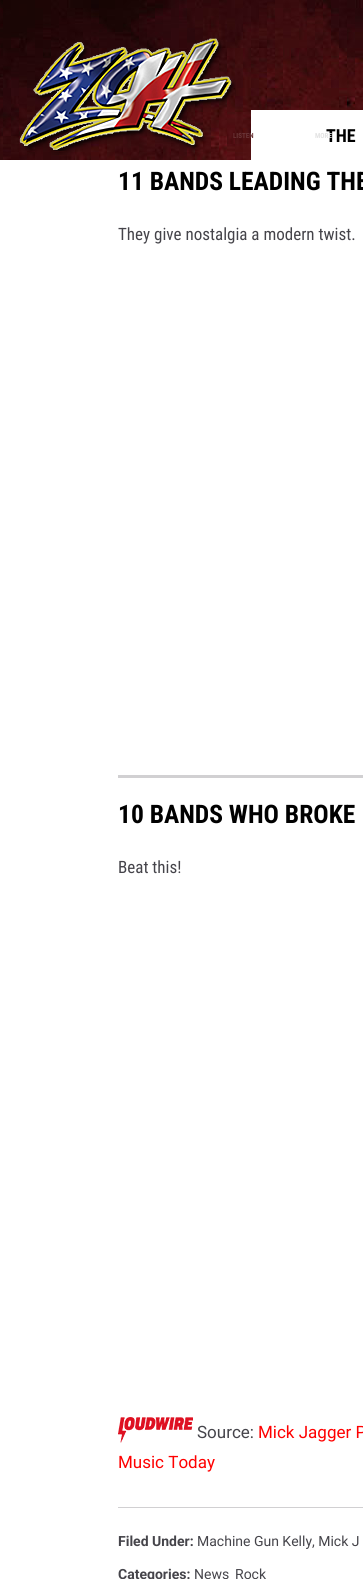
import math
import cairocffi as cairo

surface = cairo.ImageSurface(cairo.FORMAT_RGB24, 363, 1579)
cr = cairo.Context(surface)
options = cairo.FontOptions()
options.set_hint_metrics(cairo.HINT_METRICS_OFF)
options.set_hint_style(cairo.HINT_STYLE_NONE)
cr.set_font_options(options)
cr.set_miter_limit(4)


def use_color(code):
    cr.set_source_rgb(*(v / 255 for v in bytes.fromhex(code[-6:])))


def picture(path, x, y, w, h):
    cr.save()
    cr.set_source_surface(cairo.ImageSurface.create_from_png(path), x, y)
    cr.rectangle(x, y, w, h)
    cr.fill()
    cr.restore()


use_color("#ffffff")
cr.paint()
picture("img1.png", 0, 0, 363, 160)
use_color("#ffffff")
cr.rectangle(251, 110, 112, 50)
cr.fill()
cr.select_font_face("Roboto Condensed", cairo.FONT_SLANT_NORMAL, cairo.FONT_WEIGHT_BOLD)
cr.set_font_size(7)
use_color("#693537")
cr.move_to(233, 138)
cr.show_text("LISTEN")
picture("img2.png", 19, 38, 217, 117)
cr.set_font_size(18)
use_color("#000000")
cr.move_to(326, 142)
cr.show_text("THE")
cr.set_font_size(7)
use_color("#e3e3e3")
cr.move_to(315, 138)
cr.show_text("MORE")
cr.set_font_size(25.5)
use_color("#000000")
cr.move_to(118, 190)
cr.show_text("11 BANDS LEADING THE")
cr.select_font_face("Roboto Condensed")
cr.set_font_size(17)
use_color("#45444a")
cr.move_to(118, 240)
cr.show_text("They give nostalgia a modern twist.")
use_color("#d1d0d2")
cr.rectangle(118, 775, 245, 3)
cr.fill()
cr.select_font_face("Roboto Condensed", cairo.FONT_SLANT_NORMAL, cairo.FONT_WEIGHT_BOLD)
cr.set_font_size(25.5)
use_color("#000000")
cr.move_to(118, 823)
cr.show_text("10 BANDS WHO BROKE")
cr.select_font_face("Roboto Condensed")
cr.set_font_size(17)
use_color("#45444a")
cr.move_to(118, 873)
cr.show_text("Beat this!")
picture("img3.png", 118, 1417, 75, 26)
cr.select_font_face("Roboto")
cr.move_to(197, 1438)
cr.show_text("Source:")
use_color("#ff0000")
cr.move_to(258, 1438)
cr.show_text("Mick Jagger P")
cr.move_to(118, 1468)
cr.show_text("Music Today")
use_color("#d1d0d2")
cr.rectangle(118, 1507, 245, 1)
cr.fill()
cr.select_font_face("Roboto", cairo.FONT_SLANT_NORMAL, cairo.FONT_WEIGHT_BOLD)
cr.set_font_size(14)
use_color("#45444a")
cr.move_to(118, 1546)
cr.show_text("Filed Under:")
cr.select_font_face("Roboto")
cr.move_to(197, 1546)
cr.show_text("Machine Gun Kelly, Mick J")
cr.select_font_face("Roboto", cairo.FONT_SLANT_NORMAL, cairo.FONT_WEIGHT_BOLD)
cr.move_to(118, 1579)
cr.show_text("Categories:")
cr.select_font_face("Roboto")
cr.move_to(194, 1579)
cr.show_text("News")
cr.move_to(235, 1579)
cr.show_text("Rock")
surface.write_to_png("result.png")
